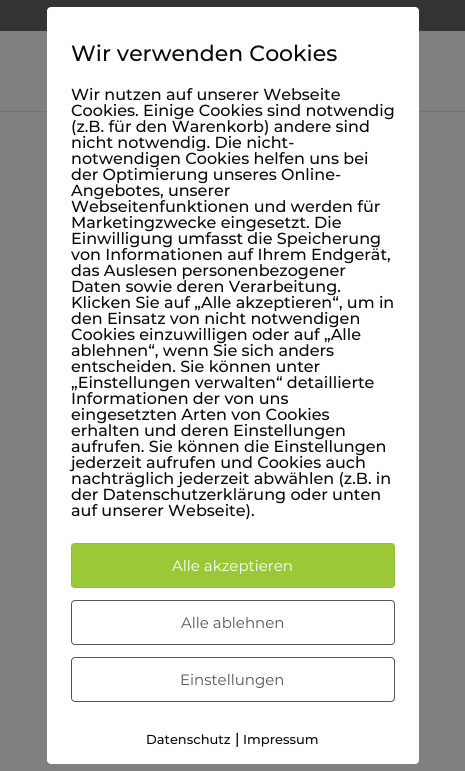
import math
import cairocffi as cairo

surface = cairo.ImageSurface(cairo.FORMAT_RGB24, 465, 771)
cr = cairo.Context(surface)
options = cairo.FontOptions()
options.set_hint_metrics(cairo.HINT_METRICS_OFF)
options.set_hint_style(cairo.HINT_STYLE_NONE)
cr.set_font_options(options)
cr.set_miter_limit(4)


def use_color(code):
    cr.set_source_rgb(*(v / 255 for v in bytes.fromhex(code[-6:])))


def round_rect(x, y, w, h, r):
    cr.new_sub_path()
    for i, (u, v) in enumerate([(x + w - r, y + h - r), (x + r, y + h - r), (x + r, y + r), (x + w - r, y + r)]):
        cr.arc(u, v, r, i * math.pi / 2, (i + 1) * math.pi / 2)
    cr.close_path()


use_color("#808080")
cr.paint()
use_color("#333333")
cr.rectangle(0, 0, 465, 31)
cr.fill()
use_color("#737373")
cr.rectangle(0, 111, 465, 1)
cr.fill()
use_color("#ffffff")
round_rect(47, 7, 372, 757, 4)
cr.fill()
cr.select_font_face("Montserrat Medium")
cr.set_font_size(22)
use_color("#0a0a0a")
cr.move_to(71, 61)
cr.show_text("Wir verwenden Cookies")
cr.set_font_size(16)
cr.move_to(71, 100)
cr.show_text("Wir nutzen auf unserer Webseite")
cr.move_to(71, 116)
cr.show_text("Cookies. Einige Cookies sind notwendig")
cr.move_to(71, 132)
cr.show_text("(z.B. für den Warenkorb) andere sind")
cr.move_to(71, 148)
cr.show_text("nicht notwendig. Die nicht-")
cr.move_to(71, 164)
cr.show_text("notwendigen Cookies helfen uns bei")
cr.move_to(71, 180)
cr.show_text("der Optimierung unseres Online-")
cr.move_to(71, 196)
cr.show_text("Angebotes, unserer")
cr.move_to(71, 212)
cr.show_text("Webseitenfunktionen und werden für")
cr.move_to(71, 228)
cr.show_text("Marketingzwecke eingesetzt. Die")
cr.move_to(71, 244)
cr.show_text("Einwilligung umfasst die Speicherung")
cr.move_to(71, 260)
cr.show_text("von Informationen auf Ihrem Endgerät,")
cr.move_to(71, 276)
cr.show_text("das Auslesen personenbezogener")
cr.move_to(71, 292)
cr.show_text("Daten sowie deren Verarbeitung.")
cr.move_to(71, 308)
cr.show_text("Klicken Sie auf „Alle akzeptieren“, um in")
cr.move_to(71, 324)
cr.show_text("den Einsatz von nicht notwendigen")
cr.move_to(71, 340)
cr.show_text("Cookies einzuwilligen oder auf „Alle")
cr.move_to(71, 356)
cr.show_text("ablehnen“, wenn Sie sich anders")
cr.move_to(71, 372)
cr.show_text("entscheiden. Sie können unter")
cr.move_to(71, 388)
cr.show_text("„Einstellungen verwalten“ detaillierte")
cr.move_to(71, 404)
cr.show_text("Informationen der von uns")
cr.move_to(71, 420)
cr.show_text("eingesetzten Arten von Cookies")
cr.move_to(71, 436)
cr.show_text("erhalten und deren Einstellungen")
cr.move_to(71, 452)
cr.show_text("aufrufen. Sie können die Einstellungen")
cr.move_to(71, 468)
cr.show_text("jederzeit aufrufen und Cookies auch")
cr.move_to(71, 484)
cr.show_text("nachträglich jederzeit abwählen (z.B. in")
cr.move_to(71, 500)
cr.show_text("der Datenschutzerklärung oder unten")
cr.move_to(71, 516)
cr.show_text("auf unserer Webseite).")
use_color("#9ac836")
round_rect(71, 543, 324, 45, 4)
cr.fill()
cr.rectangle(71.5, 543.5, 323, 44)
cr.set_source_rgba(0, 0, 0, 0.06)
cr.set_line_width(1)
cr.stroke()
cr.select_font_face("Montserrat")
cr.set_font_size(15)
use_color("#ffffff")
cr.move_to(172, 571)
cr.show_text("Alle akzeptieren")
round_rect(71.5, 600.5, 323, 44, 3.5)
use_color("#555555")
cr.stroke()
cr.move_to(181, 628)
cr.show_text("Alle ablehnen")
round_rect(71.5, 657.5, 323, 44, 3.5)
cr.stroke()
cr.move_to(180, 685)
cr.show_text("Einstellungen")
cr.select_font_face("Montserrat Medium")
cr.set_font_size(13)
use_color("#0a0a0a")
cr.move_to(146, 744)
cr.show_text("Datenschutz")
cr.set_font_size(15)
cr.move_to(235, 744)
cr.show_text("|")
cr.set_font_size(13)
cr.move_to(243, 744)
cr.show_text("Impressum")
surface.write_to_png("result.png")
